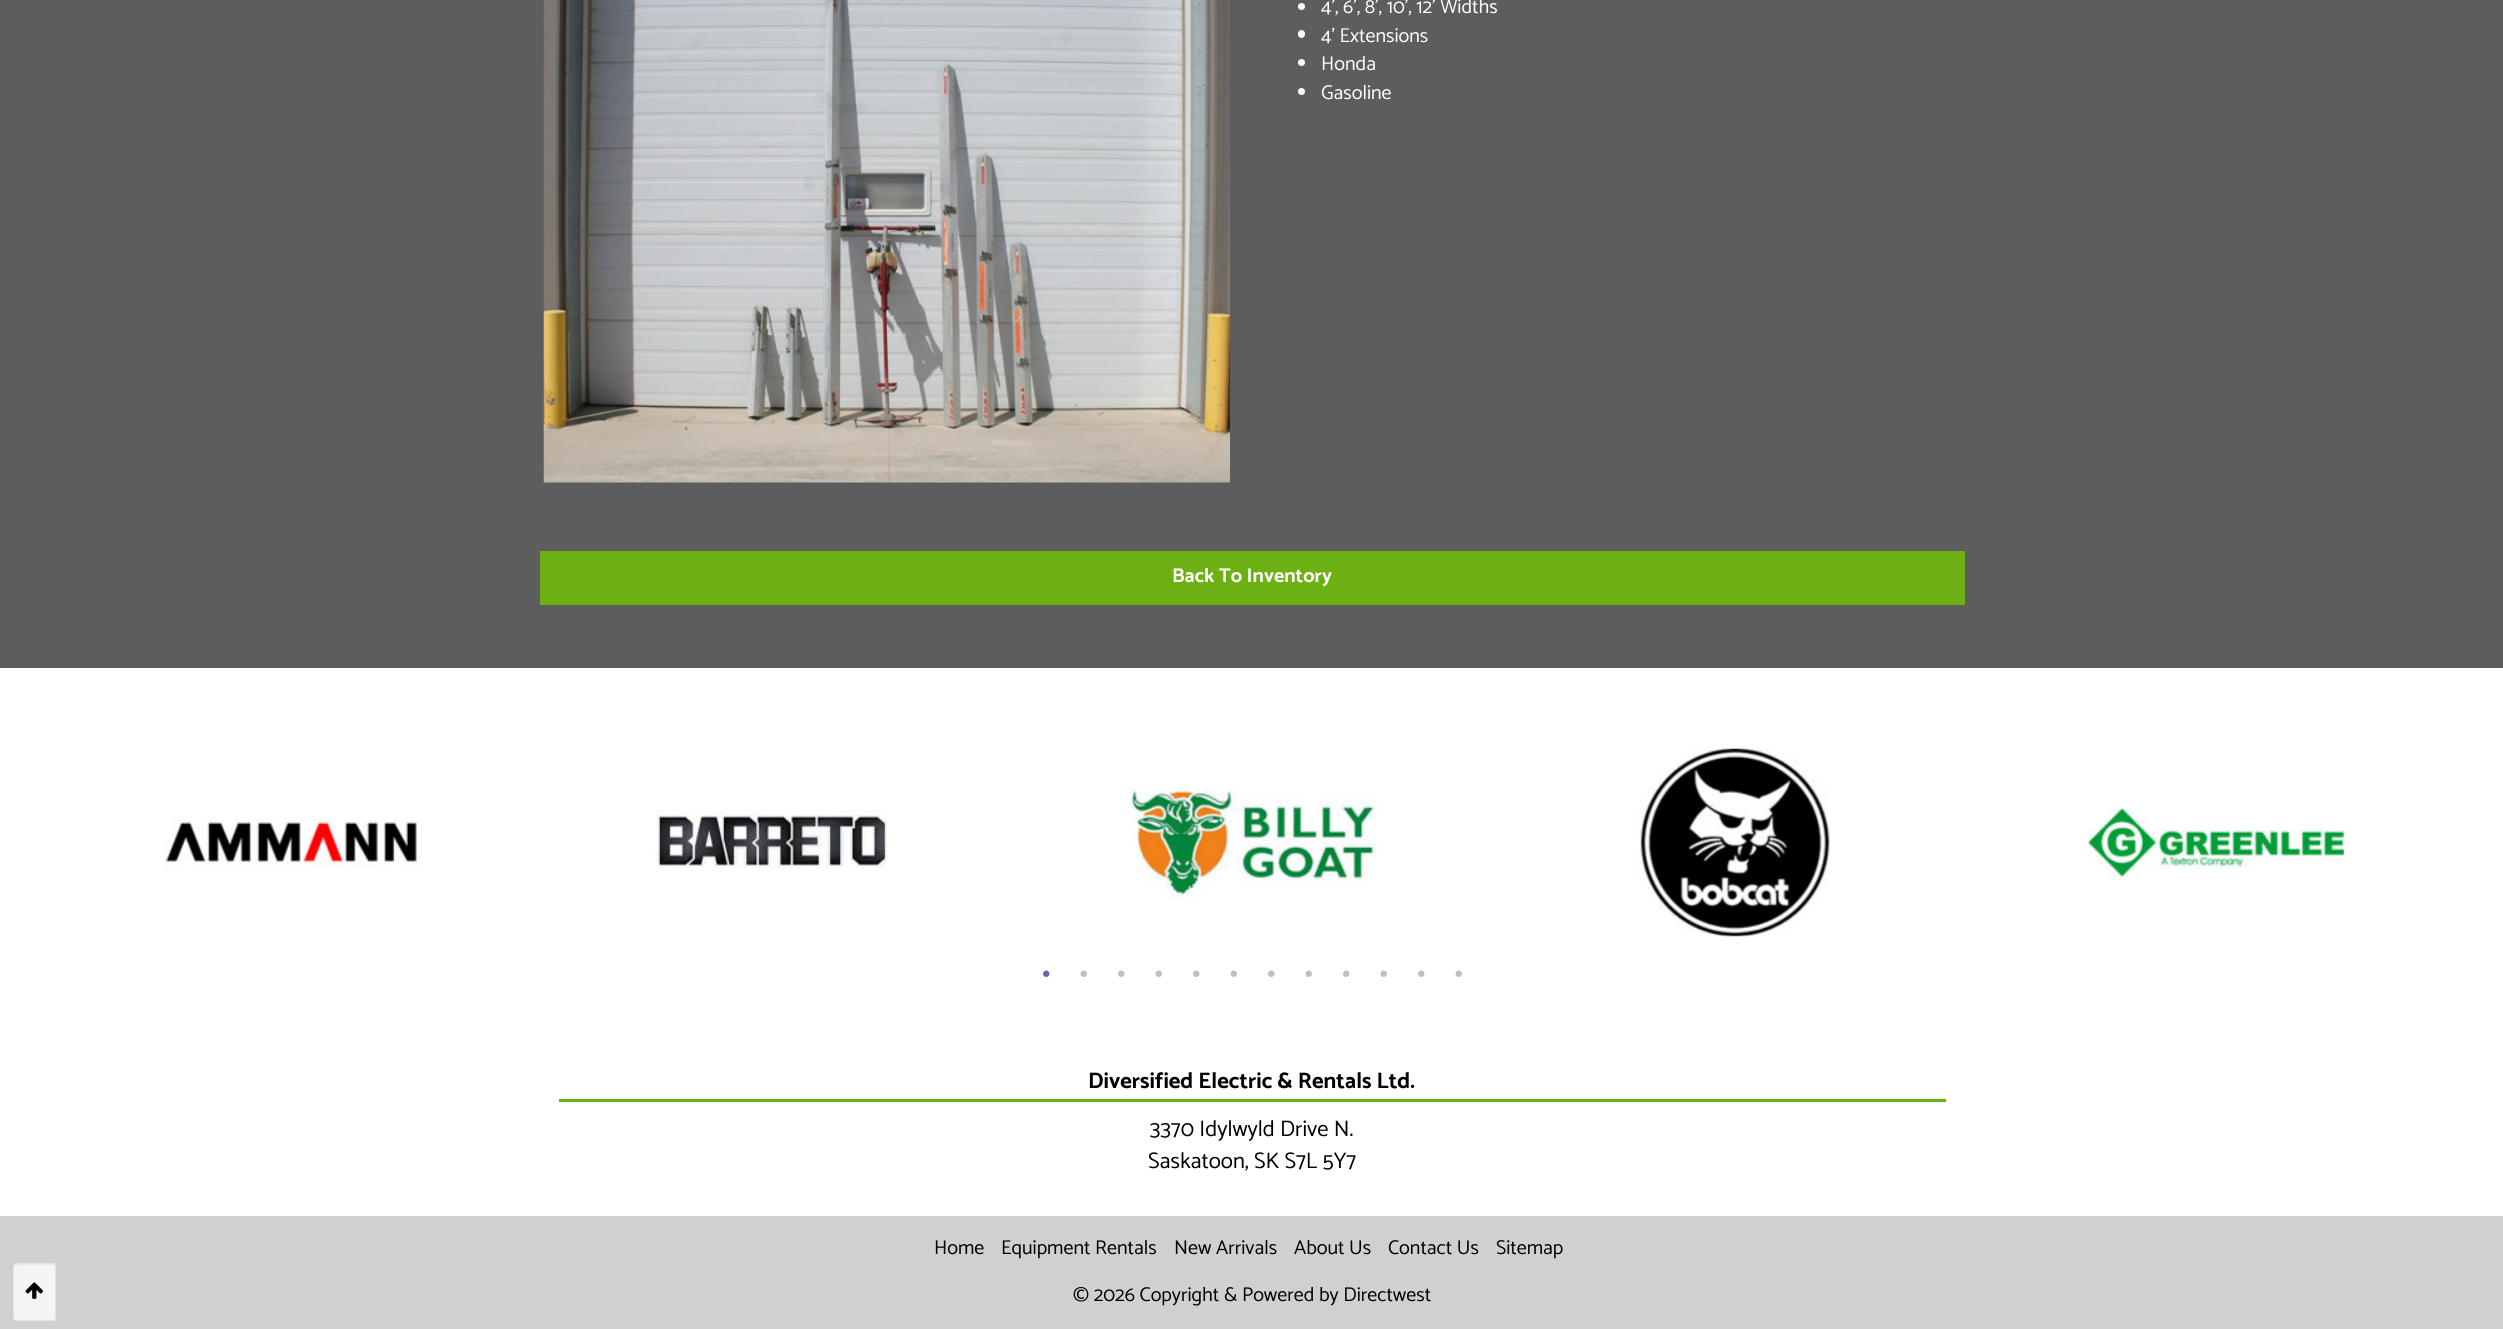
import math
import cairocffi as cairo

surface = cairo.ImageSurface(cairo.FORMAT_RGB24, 2503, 1329)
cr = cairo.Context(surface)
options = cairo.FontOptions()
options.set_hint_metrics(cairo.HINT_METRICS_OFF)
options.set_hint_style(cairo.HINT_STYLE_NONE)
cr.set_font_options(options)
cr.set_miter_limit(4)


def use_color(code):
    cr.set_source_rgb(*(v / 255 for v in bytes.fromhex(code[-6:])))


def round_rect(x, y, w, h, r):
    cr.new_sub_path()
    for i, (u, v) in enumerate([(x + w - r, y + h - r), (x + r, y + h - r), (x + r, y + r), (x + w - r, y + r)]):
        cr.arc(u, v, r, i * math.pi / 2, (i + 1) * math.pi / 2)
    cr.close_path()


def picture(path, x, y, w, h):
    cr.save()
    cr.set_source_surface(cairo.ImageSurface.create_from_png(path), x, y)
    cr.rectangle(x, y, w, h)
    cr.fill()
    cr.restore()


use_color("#ffffff")
cr.paint()
use_color("#5d5d5d")
cr.rectangle(0, 0, 2503, 668)
cr.fill()
picture("img1.png", 543, 0, 687, 483)
use_color("#ffffff")
cr.arc(1301.5, 6.5, 3.5, 0, 2 * math.pi)
cr.fill()
cr.select_font_face("Catamaran")
cr.set_font_size(20)
cr.move_to(1321, 13)
cr.show_text("4’, 6’, 8’, 10’, 12’ Widths")
round_rect(1298, 30, 7, 8, 3.5)
cr.fill()
cr.move_to(1321, 42)
cr.show_text("4’ Extensions")
cr.new_path()
cr.arc(1301.5, 62.5, 3.5, 0, 2 * math.pi)
cr.fill()
cr.move_to(1321, 70)
cr.show_text("Honda")
cr.new_path()
cr.arc(1301.5, 91.5, 3.5, 0, 2 * math.pi)
cr.fill()
cr.move_to(1321, 99)
cr.show_text("Gasoline")
use_color("#6db014")
cr.rectangle(540, 551, 1425, 54)
cr.fill()
cr.select_font_face("Catamaran", cairo.FONT_SLANT_NORMAL, cairo.FONT_WEIGHT_BOLD)
use_color("#ffffff")
cr.move_to(1172, 582)
cr.show_text("Back To Inventory")
picture("img2.png", 164, 818, 254, 51)
picture("img3.png", 655, 809, 233, 60)
picture("img4.png", 1126, 788, 251, 111)
picture("img5.png", 1638, 748, 192, 189)
picture("img6.png", 2088, 808, 256, 71)
picture("img7.png", 1043, 970, 7, 7)
picture("img8.png", 1080, 970, 7, 7)
picture("img9.png", 1118, 970, 7, 7)
picture("img8.png", 1155, 970, 7, 7)
picture("img9.png", 1193, 970, 7, 7)
picture("img8.png", 1230, 970, 7, 7)
picture("img9.png", 1268, 970, 7, 7)
picture("img8.png", 1305, 970, 7, 7)
picture("img9.png", 1343, 970, 7, 7)
picture("img8.png", 1380, 970, 7, 7)
picture("img9.png", 1418, 970, 7, 7)
picture("img8.png", 1455, 970, 7, 7)
use_color("#6db014")
cr.rectangle(559, 1099, 1387, 3)
cr.fill()
cr.set_font_size(22.5)
use_color("#000000")
cr.move_to(1088, 1088)
cr.show_text("Diversified Electric & Rentals Ltd.")
cr.select_font_face("Catamaran")
cr.move_to(1150, 1136)
cr.show_text("3370 Idylwyld Drive N.")
cr.move_to(1148, 1168)
cr.show_text("Saskatoon, SK S7L 5Y7")
use_color("#d0d0d0")
cr.rectangle(0, 1216, 2503, 113)
cr.fill()
use_color("#f5f5f5")
round_rect(13, 1263, 43, 58, 4)
cr.fill()
use_color("#e9e9e9")
cr.new_path()
cr.move_to(16, 1265)
cr.line_to(52, 1265)
cr.curve_to(54, 1265, 55, 1266, 55, 1268)
cr.curve_to(55, 1262, 52, 1264, 46, 1264)
cr.line_to(22, 1264)
cr.curve_to(17, 1264, 14, 1262, 14, 1268)
cr.curve_to(14, 1266, 15, 1265, 16, 1265)
cr.close_path()
cr.fill()
round_rect(13.5, 1263.5, 42, 57, 3.5)
use_color("#e3e3e3")
cr.set_line_width(1)
cr.stroke()
picture("img10.png", 25, 1282, 18, 17)
cr.set_font_size(20)
use_color("#000000")
cr.move_to(934, 1254)
cr.show_text("Home")
cr.move_to(1001, 1254)
cr.show_text("Equipment Rentals")
cr.move_to(1174, 1254)
cr.show_text("New Arrivals")
cr.move_to(1294, 1254)
cr.show_text("About Us")
cr.move_to(1388, 1254)
cr.show_text("Contact Us")
cr.move_to(1496, 1254)
cr.show_text("Sitemap")
cr.move_to(1073, 1301)
cr.show_text("© 2026 Copyright & Powered by Directwest")
surface.write_to_png("result.png")
